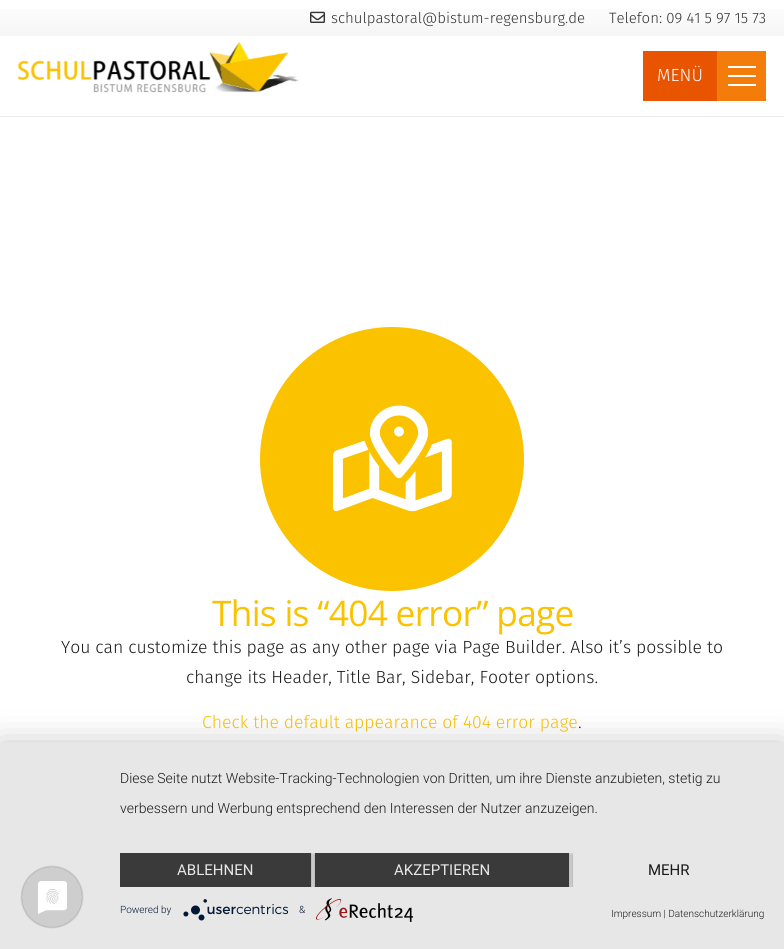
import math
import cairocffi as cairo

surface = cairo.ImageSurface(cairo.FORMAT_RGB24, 784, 949)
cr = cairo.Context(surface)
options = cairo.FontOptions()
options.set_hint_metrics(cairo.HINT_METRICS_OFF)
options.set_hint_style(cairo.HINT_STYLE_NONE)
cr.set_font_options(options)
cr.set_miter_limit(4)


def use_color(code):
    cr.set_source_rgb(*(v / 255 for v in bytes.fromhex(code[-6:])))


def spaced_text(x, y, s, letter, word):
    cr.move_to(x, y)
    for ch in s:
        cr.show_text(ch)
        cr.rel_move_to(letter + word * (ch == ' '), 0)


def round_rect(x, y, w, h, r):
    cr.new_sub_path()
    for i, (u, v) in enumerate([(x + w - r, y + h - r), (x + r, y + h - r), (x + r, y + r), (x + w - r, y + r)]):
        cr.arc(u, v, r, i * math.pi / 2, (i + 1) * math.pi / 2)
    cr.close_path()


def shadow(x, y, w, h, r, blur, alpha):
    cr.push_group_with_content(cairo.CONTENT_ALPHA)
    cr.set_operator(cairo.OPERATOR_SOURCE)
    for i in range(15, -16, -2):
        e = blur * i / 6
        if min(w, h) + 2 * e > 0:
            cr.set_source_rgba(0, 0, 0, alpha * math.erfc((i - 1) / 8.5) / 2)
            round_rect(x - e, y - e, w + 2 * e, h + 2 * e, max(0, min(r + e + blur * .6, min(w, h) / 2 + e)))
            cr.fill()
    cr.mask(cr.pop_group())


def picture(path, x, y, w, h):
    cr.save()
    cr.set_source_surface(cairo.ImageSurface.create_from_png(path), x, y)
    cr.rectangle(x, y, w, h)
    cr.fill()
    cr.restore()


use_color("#ffffff")
cr.paint()
gradient = cairo.LinearGradient(392, 36, 392, 0)
gradient.add_color_stop_rgba(0, 0.961, 0.961, 0.961, 1)
gradient.add_color_stop_rgba(1, 1, 1, 1, 1)
cr.set_source(gradient)
cr.rectangle(0, 9, 784, 27)
cr.fill()
picture("img1.png", 310, 11, 15, 12)
cr.select_font_face("Fira Sans Light")
cr.set_font_size(15)
use_color("#333333")
cr.move_to(331, 23)
cr.show_text("schulpastoral@bistum-regensburg.de")
cr.move_to(609, 23)
cr.show_text("Telefon: 09 41 5 97 15 73")
use_color("#ebebeb")
cr.rectangle(0, 116, 784, 1)
cr.fill()
picture("img2.png", 17, 42, 282, 51)
use_color("#e85400")
cr.rectangle(643, 51, 74, 50)
cr.fill()
cr.set_font_size(17.6)
use_color("#ffffff")
cr.move_to(657, 81)
cr.show_text("MENÜ")
use_color("#f37c0a")
cr.rectangle(717, 51, 49, 50)
cr.fill()
use_color("#ffffff")
cr.rectangle(728, 75, 28, 2)
cr.fill()
cr.rectangle(728, 66, 28, 2)
cr.fill()
cr.rectangle(728, 84, 28, 2)
cr.fill()
use_color("#fbc200")
cr.arc(392, 459, 132, 0, 2 * math.pi)
cr.fill()
picture("img3.png", 333, 405, 119, 107)
cr.select_font_face("Open Sans")
cr.set_font_size(35.25)
spaced_text(212, 626, "This is “404 error” page", -0.7, 0)
cr.select_font_face("Fira Sans Light")
cr.set_font_size(17.6)
use_color("#1a1a1a")
cr.move_to(61, 653)
cr.show_text("You can customize this page as any other page via Page Builder. Also it’s possible to")
cr.move_to(186, 683)
cr.show_text("change its Header, Title Bar, Sidebar, Footer options.")
use_color("#fbc200")
cr.move_to(202, 728)
cr.show_text("Check the default appearance of 404 error page")
use_color("#1a1a1a")
cr.move_to(578, 728)
cr.show_text(".")
use_color("#000000")
shadow(0, 749, 784, 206, 0, 18, 0.3)
use_color("#e7e7e7")
cr.rectangle(0, 743, 784, 206)
cr.fill()
picture("img4.png", 20, 865, 64, 64)
cr.select_font_face("Roboto Light")
cr.set_font_size(14)
use_color("#1a1a1a")
cr.move_to(120, 783)
cr.show_text("Diese Seite nutzt Website-Tracking-Technologien von Dritten, um ihre Dienste anzubieten, stetig zu")
cr.move_to(120, 813)
cr.show_text("verbessern und Werbung entsprechend den Interessen der Nutzer anzuzeigen.")
cr.save()
cr.rectangle(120, 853, 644, 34)
cr.clip()
use_color("#000000")
shadow(120, 854, 191, 34, 0, 2, 0.4)
cr.restore()
use_color("#3a3a3a")
cr.rectangle(120, 853, 191, 34)
cr.fill()
cr.select_font_face("Roboto")
cr.set_font_size(15)
use_color("#e7e7e7")
cr.move_to(177, 875)
cr.show_text("ABLEHNEN")
cr.save()
cr.rectangle(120, 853, 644, 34)
cr.clip()
use_color("#000000")
shadow(315, 854, 254, 34, 0, 2, 0.4)
cr.restore()
use_color("#3a3a3a")
cr.rectangle(315, 853, 254, 34)
cr.fill()
use_color("#e7e7e7")
cr.move_to(394, 875)
cr.show_text("AKZEPTIEREN")
cr.save()
cr.rectangle(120, 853, 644, 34)
cr.clip()
cr.rectangle(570, 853, 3, 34)
cr.clip()
use_color("#000000")
shadow(573, 854, 191, 34, 0, 2, 0.4)
cr.restore()
use_color("#1a1a1a")
cr.move_to(648, 875)
cr.show_text("MEHR")
cr.select_font_face("Roboto Light")
cr.set_font_size(10)
use_color("#021836")
cr.move_to(120, 913)
cr.show_text("Powered by")
picture("img5.png", 183, 899, 106, 22)
cr.move_to(299, 913)
cr.show_text("&")
picture("img6.png", 316, 898, 97, 24)
use_color("#1a1a1a")
cr.move_to(611, 917)
cr.show_text("Impressum | Datenschutzerklärung")
surface.write_to_png("result.png")
